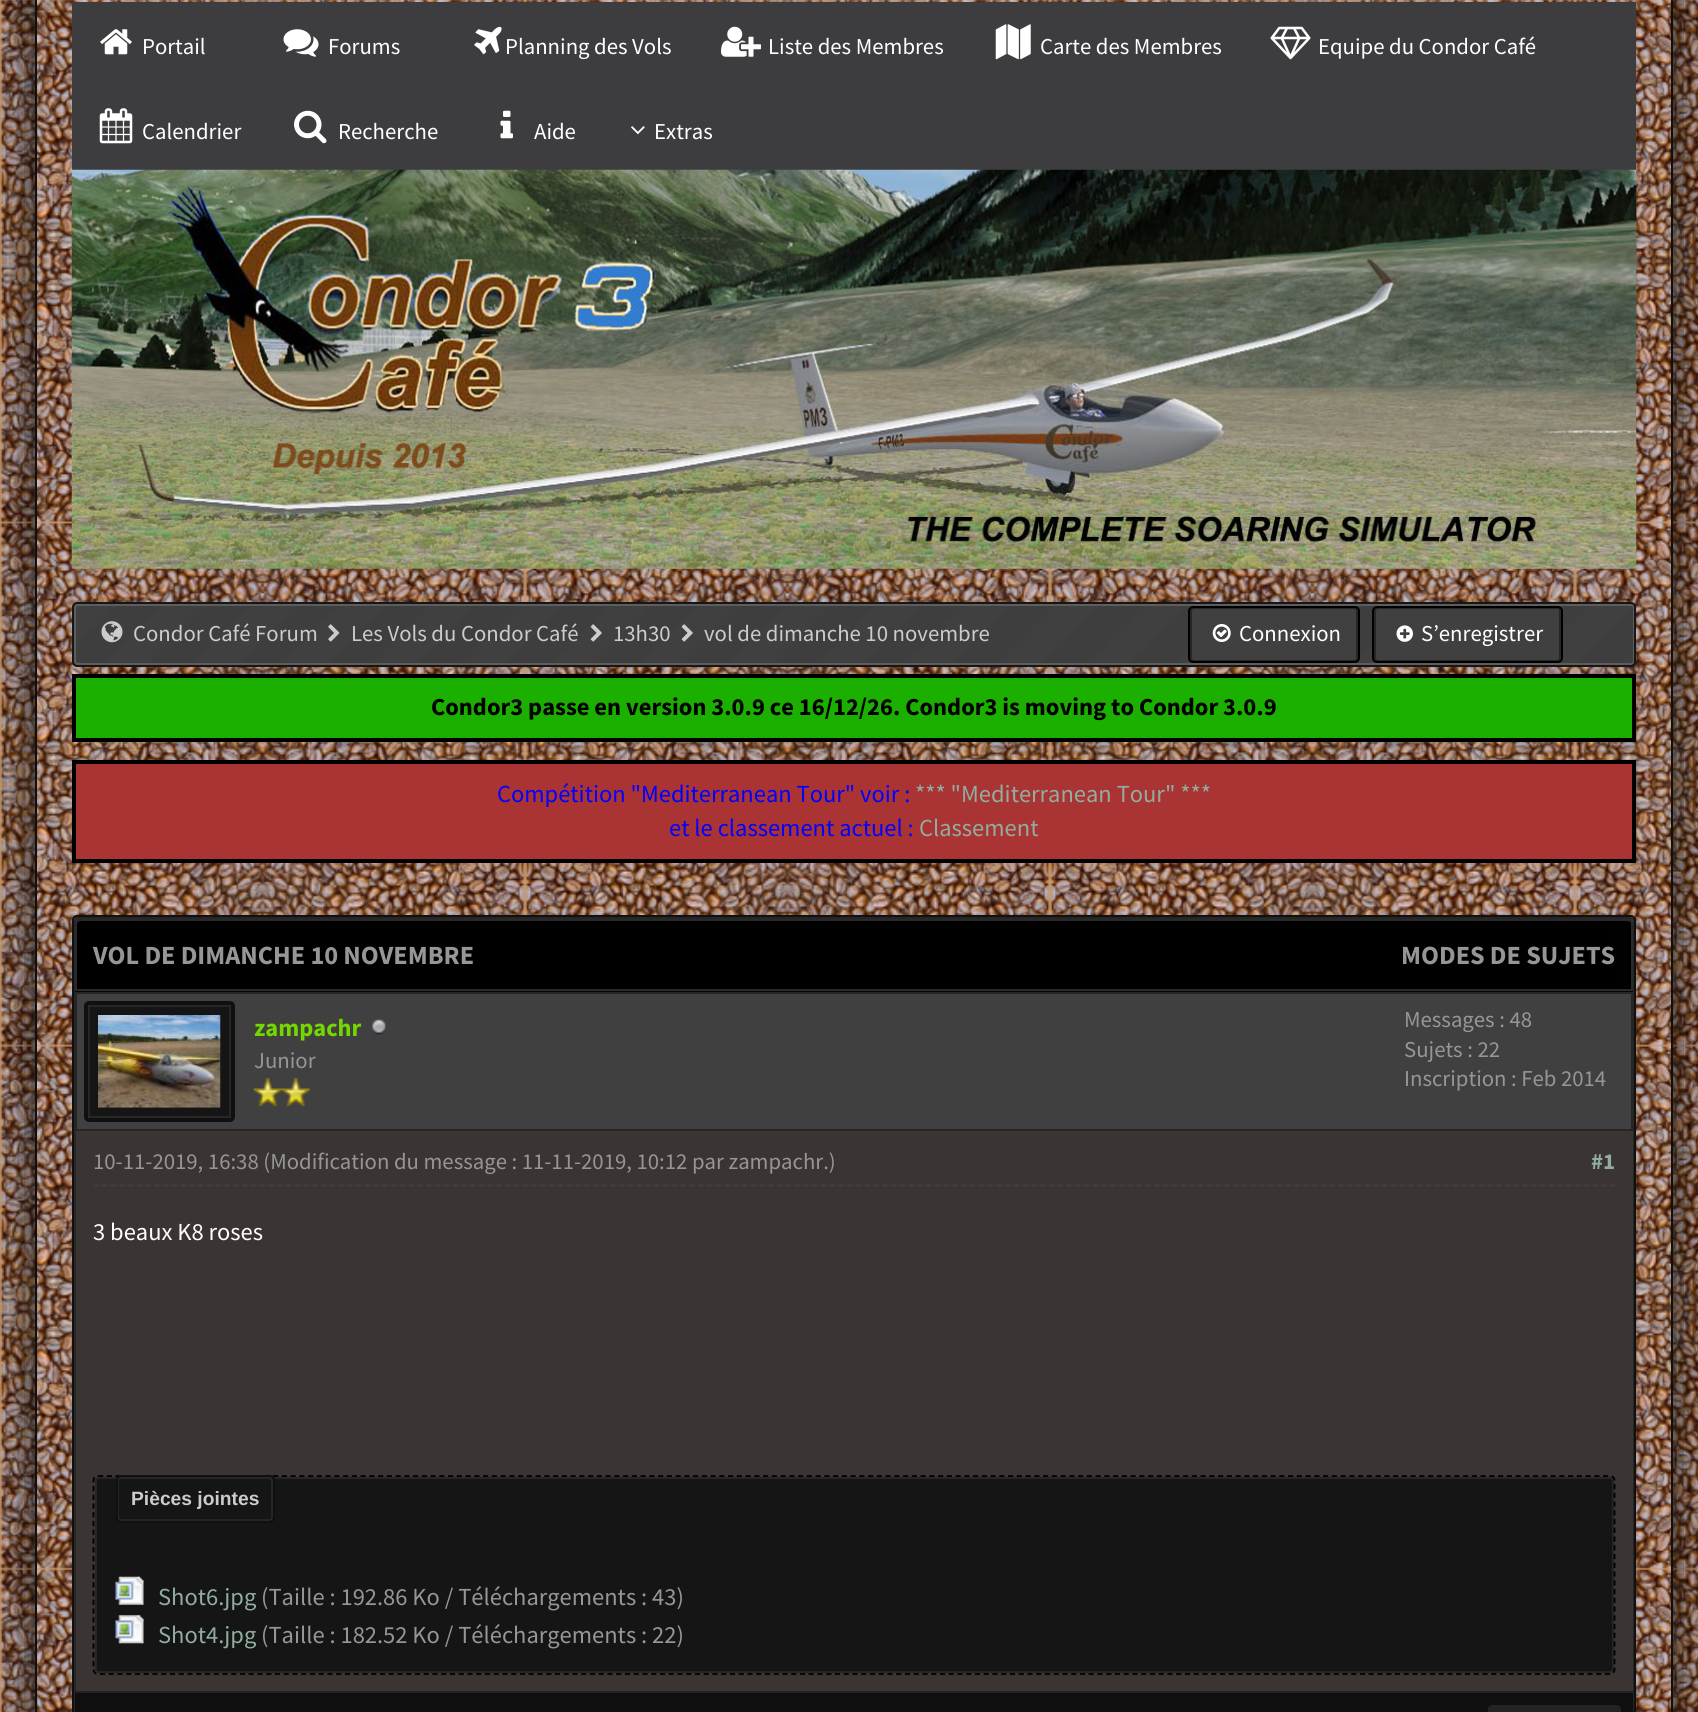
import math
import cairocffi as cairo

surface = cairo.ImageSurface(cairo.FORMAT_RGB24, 1698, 1712)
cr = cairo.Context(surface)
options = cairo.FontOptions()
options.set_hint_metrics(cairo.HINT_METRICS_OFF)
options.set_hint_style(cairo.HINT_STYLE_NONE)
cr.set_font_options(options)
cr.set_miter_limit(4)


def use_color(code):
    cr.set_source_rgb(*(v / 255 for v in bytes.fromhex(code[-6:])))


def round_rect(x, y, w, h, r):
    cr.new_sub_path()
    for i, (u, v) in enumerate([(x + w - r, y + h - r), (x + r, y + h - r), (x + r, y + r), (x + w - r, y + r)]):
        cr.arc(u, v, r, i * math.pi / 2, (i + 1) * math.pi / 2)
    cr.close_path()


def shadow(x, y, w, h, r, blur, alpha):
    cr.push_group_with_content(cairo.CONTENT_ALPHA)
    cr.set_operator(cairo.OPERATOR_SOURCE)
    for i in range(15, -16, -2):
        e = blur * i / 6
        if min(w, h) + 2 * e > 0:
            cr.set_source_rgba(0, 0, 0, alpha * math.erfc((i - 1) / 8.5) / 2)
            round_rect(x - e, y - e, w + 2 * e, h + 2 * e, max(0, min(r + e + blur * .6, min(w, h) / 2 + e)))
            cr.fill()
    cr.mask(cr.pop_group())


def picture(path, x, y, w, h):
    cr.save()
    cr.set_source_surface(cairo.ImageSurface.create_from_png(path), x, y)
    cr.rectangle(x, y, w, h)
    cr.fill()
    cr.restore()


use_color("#cc9966")
cr.paint()
picture("img1.png", 0, 0, 1698, 1712)
cr.save()
cr.set_fill_rule(cairo.FILL_RULE_EVEN_ODD)
cr.new_path()
cr.move_to(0, 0)
cr.line_to(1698, 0)
cr.line_to(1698, 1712)
cr.line_to(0, 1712)
cr.close_path()
cr.move_to(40, -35)
cr.line_to(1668, -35)
cr.curve_to(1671, -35, 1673, -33, 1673, -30)
cr.line_to(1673, 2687)
cr.curve_to(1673, 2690, 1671, 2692, 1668, 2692)
cr.line_to(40, 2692)
cr.curve_to(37, 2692, 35, 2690, 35, 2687)
cr.line_to(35, -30)
cr.curve_to(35, -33, 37, -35, 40, -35)
cr.close_path()
cr.clip()
use_color("#0d0d0d")
shadow(35, -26, 1638, 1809, 5, 22, 1)
cr.restore()
cr.rectangle(36, -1, 1636, 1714)
use_color("#101010")
cr.stroke()
use_color("#3d3d40")
cr.rectangle(72, 2, 1564, 168)
cr.fill()
picture("img2.png", 100, 29, 32, 26)
cr.select_font_face("Source Sans Pro")
cr.set_font_size(22.75)
use_color("#ffffff")
cr.move_to(142, 54)
cr.show_text("Portail")
picture("img3.png", 283, 29, 36, 28)
cr.move_to(328, 54)
cr.show_text("Forums")
picture("img4.png", 474, 26, 28, 29)
cr.move_to(505, 54)
cr.show_text("Planning des Vols")
picture("img5.png", 721, 26, 40, 31)
cr.move_to(768, 54)
cr.show_text("Liste des Membres")
picture("img6.png", 995, 24, 36, 36)
cr.move_to(1040, 54)
cr.show_text("Carte des Membres")
picture("img7.png", 1270, 26, 41, 34)
cr.move_to(1318, 54)
cr.show_text("Equipe du Condor Café")
picture("img8.png", 99, 108, 34, 36)
cr.move_to(142, 139)
cr.show_text("Calendrier")
picture("img9.png", 294, 110, 33, 34)
cr.move_to(338, 139)
cr.show_text("Recherche")
picture("img10.png", 500, 110, 13, 29)
cr.move_to(534, 139)
cr.show_text("Aide")
picture("img11.png", 631, 126, 14, 9)
cr.move_to(654, 139)
cr.show_text("Extras")
picture("img12.png", 74, 604, 1560, 61)
round_rect(75, 605, 1559, 59, 3)
use_color("#5d5d5d")
cr.stroke()
round_rect(73, 603, 1562, 63, 4)
use_color("#161616")
cr.stroke()
picture("img13.png", 101, 621, 22, 22)
use_color("#cccccc")
cr.move_to(133, 641)
cr.show_text("Condor Café Forum")
picture("img14.png", 328, 624, 12, 18)
cr.move_to(351, 641)
cr.show_text("Les Vols du Condor Café")
picture("img15.png", 590, 624, 12, 18)
cr.move_to(613, 641)
cr.show_text("13h30")
picture("img16.png", 681, 624, 12, 18)
cr.move_to(704, 641)
cr.show_text("vol de dimanche 10 novembre")
picture("img17.png", 71, 169, 1566, 400)
picture("img18.png", 1190, 608, 168, 53)
round_rect(1191, 608, 166, 53, 3)
use_color("#262626")
cr.stroke()
round_rect(1189, 607, 170, 55, 4)
use_color("#000000")
cr.stroke()
picture("img19.png", 1212, 624, 19, 18)
use_color("#ffffff")
cr.move_to(1239, 641)
cr.show_text("Connexion")
picture("img20.png", 1374, 608, 187, 53)
round_rect(1375, 608, 185, 53, 3)
use_color("#262626")
cr.stroke()
round_rect(1373, 607, 189, 55, 4)
use_color("#000000")
cr.stroke()
picture("img21.png", 1396, 625, 17, 17)
use_color("#ffffff")
cr.move_to(1421, 641)
cr.show_text("S’enregistrer")
use_color("#1bb000")
cr.rectangle(74, 676, 1560, 64)
cr.fill_preserve()
use_color("#000000")
cr.set_line_width(4)
cr.stroke()
cr.select_font_face("Source Sans Pro", cairo.FONT_SLANT_NORMAL, cairo.FONT_WEIGHT_BOLD)
cr.set_font_size(24.5)
cr.move_to(431, 715)
cr.show_text("Condor3 passe en version 3.0.9 ce 16/12/26. Condor3 is moving to Condor 3.0.9")
use_color("#aa3333")
cr.rectangle(74, 762, 1560, 99)
cr.fill_preserve()
use_color("#000000")
cr.stroke()
cr.select_font_face("Source Sans Pro")
use_color("#0000ff")
cr.move_to(497, 802)
cr.show_text("Compétition \"Mediterranean Tour\" voir :")
use_color("#91ad9f")
cr.move_to(915, 802)
cr.show_text("*** \"Mediterranean Tour\" ***")
use_color("#0000ff")
cr.move_to(669, 836)
cr.show_text("et le classement actuel :")
use_color("#91ad9f")
cr.move_to(919, 836)
cr.show_text("Classement")
use_color("#3a3433")
round_rect(75, 918, 1559, 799, 3)
cr.fill_preserve()
use_color("#262626")
cr.set_line_width(2)
cr.stroke()
round_rect(73, 916, 1562, 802, 4)
use_color("#101010")
cr.stroke()
picture("img22.png", 75, 919, 1558, 70)
cr.new_path()
cr.move_to(80, 920)
cr.line_to(1628, 920)
cr.curve_to(1630, 920, 1632, 922, 1632, 924)
cr.line_to(1632, 990)
cr.line_to(76, 990)
cr.line_to(76, 924)
cr.curve_to(76, 922, 78, 920, 80, 920)
cr.close_path()
use_color("#2a2a2a")
cr.stroke()
use_color("#070707")
cr.rectangle(75, 991, 1558, 1)
cr.fill()
cr.select_font_face("Source Sans Pro", cairo.FONT_SLANT_NORMAL, cairo.FONT_WEIGHT_BOLD)
cr.set_font_size(26.25)
use_color("#969696")
cr.move_to(93, 964)
cr.show_text("VOL DE DIMANCHE 10 NOVEMBRE")
cr.move_to(1401, 964)
cr.show_text("MODES DE SUJETS")
use_color("#404040")
cr.rectangle(76, 993, 1556, 137)
cr.fill_preserve()
use_color("#262626")
cr.stroke()
use_color("#151515")
round_rect(89, 1006, 141, 111, 1)
cr.fill_preserve()
use_color("#262626")
cr.stroke()
round_rect(86, 1003, 147, 117, 3)
use_color("#101010")
cr.set_line_width(4)
cr.stroke()
picture("img23.png", 98, 1015, 123, 93)
cr.set_font_size(24.5)
use_color("#73d800")
cr.move_to(254, 1036)
cr.show_text("zampachr")
picture("img24.png", 372, 1019, 14, 16)
cr.select_font_face("Source Sans Pro")
cr.set_font_size(22.75)
use_color("#969696")
cr.move_to(254, 1068)
cr.show_text("Junior")
picture("img25.png", 253, 1078, 29, 28)
picture("img26.png", 281, 1078, 29, 28)
cr.move_to(1404, 1027)
cr.show_text("Messages : 48")
cr.move_to(1404, 1057)
cr.show_text("Sujets : 22")
cr.move_to(1404, 1086)
cr.show_text("Inscription : Feb 2014")
cr.new_path()
cr.move_to(93, 1185.5)
cr.line_to(1615, 1185.5)
use_color("#414040")
cr.set_line_width(1.8)
cr.set_dash([5.25, 3.52])
cr.stroke()
use_color("#969696")
cr.move_to(93, 1169)
cr.show_text("10-11-2019, 16:38 (Modification du message : 11-11-2019, 10:12 par zampachr.)")
cr.select_font_face("Source Sans Pro", cairo.FONT_SLANT_NORMAL, cairo.FONT_WEIGHT_BOLD)
use_color("#91ad9f")
cr.move_to(1591, 1169)
cr.show_text("#1")
cr.select_font_face("Source Sans Pro")
cr.set_font_size(24.5)
use_color("#ffffff")
cr.move_to(93, 1240)
cr.show_text("3 beaux K8 roses")
use_color("#151515")
round_rect(96, 1478, 1517, 194, 3)
cr.fill_preserve()
use_color("#262626")
cr.set_line_width(2)
cr.set_dash([])
cr.stroke()
cr.new_path()
cr.move_to(98, 1476)
cr.line_to(1610, 1476)
cr.curve_to(1612.5, 1476, 1614.5, 1478, 1614.5, 1480.5)
cr.line_to(1614.5, 1669.5)
cr.curve_to(1614.5, 1672, 1612.5, 1674, 1610, 1674)
cr.line_to(98, 1674)
cr.curve_to(95.5, 1674, 93.5, 1672, 93.5, 1669.5)
cr.line_to(93.5, 1480.5)
cr.curve_to(93.5, 1478, 95.5, 1476, 98, 1476)
cr.close_path()
use_color("#000000")
cr.set_line_width(1.8)
cr.set_dash([5.25, 3.5])
cr.stroke()
use_color("#151515")
round_rect(118, 1478, 154, 42, 3)
cr.fill_preserve()
use_color("#262626")
cr.set_line_width(2)
cr.set_dash([])
cr.stroke()
round_rect(117, 1476, 157, 46, 4)
use_color("#101010")
cr.stroke()
cr.select_font_face("Liberation Sans", cairo.FONT_SLANT_NORMAL, cairo.FONT_WEIGHT_BOLD)
cr.set_font_size(19.25)
use_color("#cccccc")
cr.move_to(131, 1505)
cr.show_text("Pièces jointes")
picture("img27.png", 115, 1576, 29, 29)
cr.select_font_face("Source Sans Pro")
cr.set_font_size(24.5)
use_color("#91ad9f")
cr.move_to(158, 1605)
cr.show_text("Shot6.jpg")
use_color("#969696")
cr.move_to(261, 1605)
cr.show_text("(Taille : 192.86 Ko / Téléchargements : 43)")
picture("img28.png", 115, 1615, 29, 29)
use_color("#91ad9f")
cr.move_to(158, 1643)
cr.show_text("Shot4.jpg")
use_color("#969696")
cr.move_to(261, 1643)
cr.show_text("(Taille : 182.52 Ko / Téléchargements : 22)")
use_color("#0f0f0f")
cr.rectangle(75, 1693, 1558, 19)
cr.fill()
use_color("#232323")
cr.rectangle(75, 1691, 1558, 2)
cr.fill()
round_rect(1488, 1705, 133, 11, 4)
cr.fill()
surface.write_to_png("result.png")
